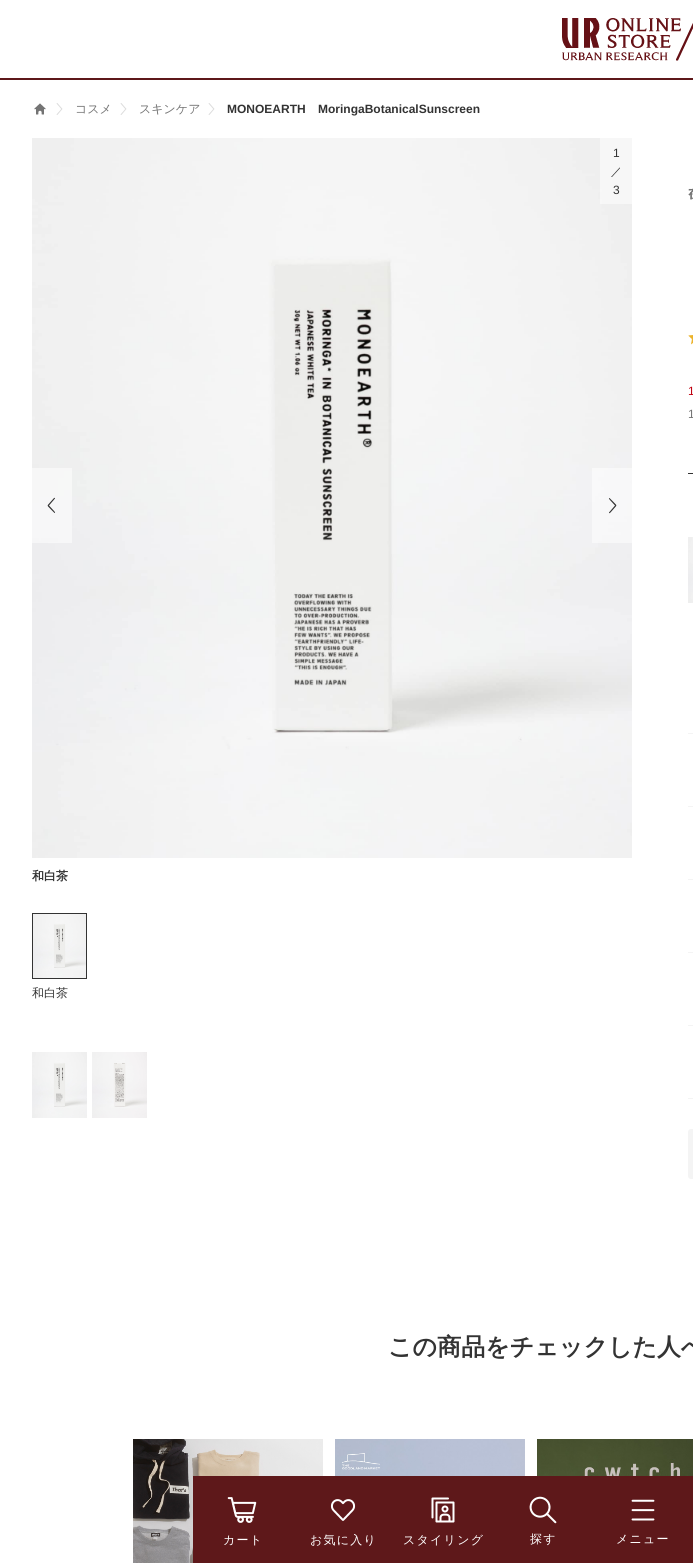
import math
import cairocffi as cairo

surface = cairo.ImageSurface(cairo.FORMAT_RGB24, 693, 1563)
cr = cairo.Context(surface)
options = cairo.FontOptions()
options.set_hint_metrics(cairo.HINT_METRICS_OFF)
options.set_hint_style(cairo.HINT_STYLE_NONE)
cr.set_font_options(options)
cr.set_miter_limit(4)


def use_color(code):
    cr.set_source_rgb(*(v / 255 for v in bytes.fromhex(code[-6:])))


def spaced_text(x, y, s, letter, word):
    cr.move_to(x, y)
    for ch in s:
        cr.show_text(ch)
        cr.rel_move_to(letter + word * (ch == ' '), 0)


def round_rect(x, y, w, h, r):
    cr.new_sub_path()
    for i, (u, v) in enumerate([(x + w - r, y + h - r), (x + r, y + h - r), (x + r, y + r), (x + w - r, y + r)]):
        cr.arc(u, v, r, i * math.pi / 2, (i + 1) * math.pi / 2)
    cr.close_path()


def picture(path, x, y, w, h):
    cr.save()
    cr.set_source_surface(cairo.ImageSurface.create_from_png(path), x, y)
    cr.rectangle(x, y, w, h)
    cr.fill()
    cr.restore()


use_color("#ffffff")
cr.paint()
use_color("#5e181a")
cr.rectangle(0, 78, 693, 2)
cr.fill()
picture("img1.png", 562, 18, 131, 43)
picture("img2.png", 34, 103, 12, 12)
picture("img3.png", 56, 103, 7, 12)
cr.select_font_face("WenQuanYi Zen Hei Medium")
cr.set_font_size(12)
use_color("#747474")
cr.move_to(75, 113)
cr.show_text("コスメ")
picture("img3.png", 120, 103, 7, 12)
cr.move_to(139, 113)
cr.show_text("スキンケア")
picture("img3.png", 208, 103, 7, 12)
cr.select_font_face("Liberation Sans", cairo.FONT_SLANT_NORMAL, cairo.FONT_WEIGHT_BOLD)
use_color("#333333")
cr.move_to(227, 113)
cr.show_text("MONOEARTH")
cr.move_to(318, 113)
cr.show_text("MoringaBotanicalSunscreen")
picture("img5.png", 32, 138, 600, 720)
cr.set_source_rgba(1, 1, 1, 0.5)
cr.rectangle(600, 138, 32, 66)
cr.fill()
cr.select_font_face("Liberation Sans")
use_color("#333333")
cr.move_to(613, 157)
cr.show_text("1")
picture("img4.png", 611, 167, 9, 10)
cr.move_to(613, 194)
cr.show_text("3")
cr.set_source_rgba(1, 1, 1, 0.5)
cr.rectangle(32, 468, 40, 75)
cr.fill()
use_color("#333333")
cr.new_path()
cr.move_to(54.5, 513)
cr.line_to(51, 509.5)
cr.curve_to(47, 505, 46.5, 506.5, 50, 502.5)
cr.line_to(54, 498)
cr.curve_to(54.5, 497.5, 55, 498, 55, 498.5)
cr.line_to(49, 505.5)
cr.curve_to(53, 510, 56.5, 513, 54.5, 513)
cr.fill()
cr.set_source_rgba(1, 1, 1, 0.5)
cr.rectangle(592, 468, 40, 75)
cr.fill()
use_color("#333333")
cr.new_path()
cr.move_to(609.5, 498)
cr.line_to(613, 501.5)
cr.curve_to(617, 506, 617.5, 504.5, 614, 508.5)
cr.line_to(610, 513)
cr.curve_to(609.5, 513.5, 609, 513, 609, 512.5)
cr.line_to(615, 505.5)
cr.curve_to(611, 501, 607.5, 498, 609.5, 498)
cr.fill()
cr.select_font_face("WenQuanYi Zen Hei", cairo.FONT_SLANT_NORMAL, cairo.FONT_WEIGHT_BOLD)
cr.move_to(32, 880)
cr.show_text("和白茶")
picture("img6.png", 33, 914, 53, 64)
cr.rectangle(32.5, 913.5, 54, 65)
cr.set_line_width(1)
cr.stroke()
cr.select_font_face("WenQuanYi Zen Hei Medium")
cr.move_to(32, 997)
cr.show_text("和白茶")
picture("img7.png", 32, 1052, 55, 66)
picture("img8.png", 92, 1052, 55, 66)
picture("img9.png", 688, 188, 5, 12)
picture("img10.png", 688, 335, 5, 10)
cr.select_font_face("Liberation Sans")
use_color("#bf0010")
cr.move_to(688, 395)
cr.show_text("1")
use_color("#747474")
cr.move_to(688, 418)
cr.show_text("1")
use_color("#333333")
cr.rectangle(688, 473, 5, 1)
cr.fill()
picture("img11.png", 688, 537, 5, 66)
use_color("#f4f4f4")
cr.rectangle(688, 733, 5, 1)
cr.fill()
cr.rectangle(688, 806, 5, 1)
cr.fill()
cr.rectangle(688, 879, 5, 1)
cr.fill()
cr.rectangle(688, 952, 5, 1)
cr.fill()
cr.rectangle(688, 1025, 5, 1)
cr.fill()
cr.rectangle(688, 1098, 5, 1)
cr.fill()
round_rect(688, 1129, 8, 50, 3)
cr.fill()
cr.select_font_face("WenQuanYi Zen Hei", cairo.FONT_SLANT_NORMAL, cairo.FONT_WEIGHT_BOLD)
cr.set_font_size(24)
use_color("#333333")
cr.move_to(388, 1355)
cr.show_text("この商品をチェックした人へ")
picture("img12.png", 133, 1439, 190, 124)
picture("img13.png", 335, 1439, 190, 37)
picture("img14.png", 537, 1439, 156, 37)
use_color("#5e181a")
cr.rectangle(193, 1476, 500, 87)
cr.fill()
picture("img15.png", 227, 1497, 30, 26)
cr.select_font_face("WenQuanYi Zen Hei Medium")
cr.set_font_size(12)
use_color("#ffffff")
spaced_text(223, 1544, "カート", 1.25, 0)
picture("img16.png", 330, 1499, 26, 22)
spaced_text(310, 1544, "お気に入り", 1.25, 0)
picture("img17.png", 431, 1497, 24, 26)
spaced_text(403, 1544, "スタイリング", 1.25, 0)
picture("img18.png", 529, 1496, 28, 28)
spaced_text(530, 1543, "探す", 1.25, 0)
picture("img19.png", 631, 1499, 24, 22)
spaced_text(616, 1543, "メニュー", 1.25, 0)
surface.write_to_png("result.png")
